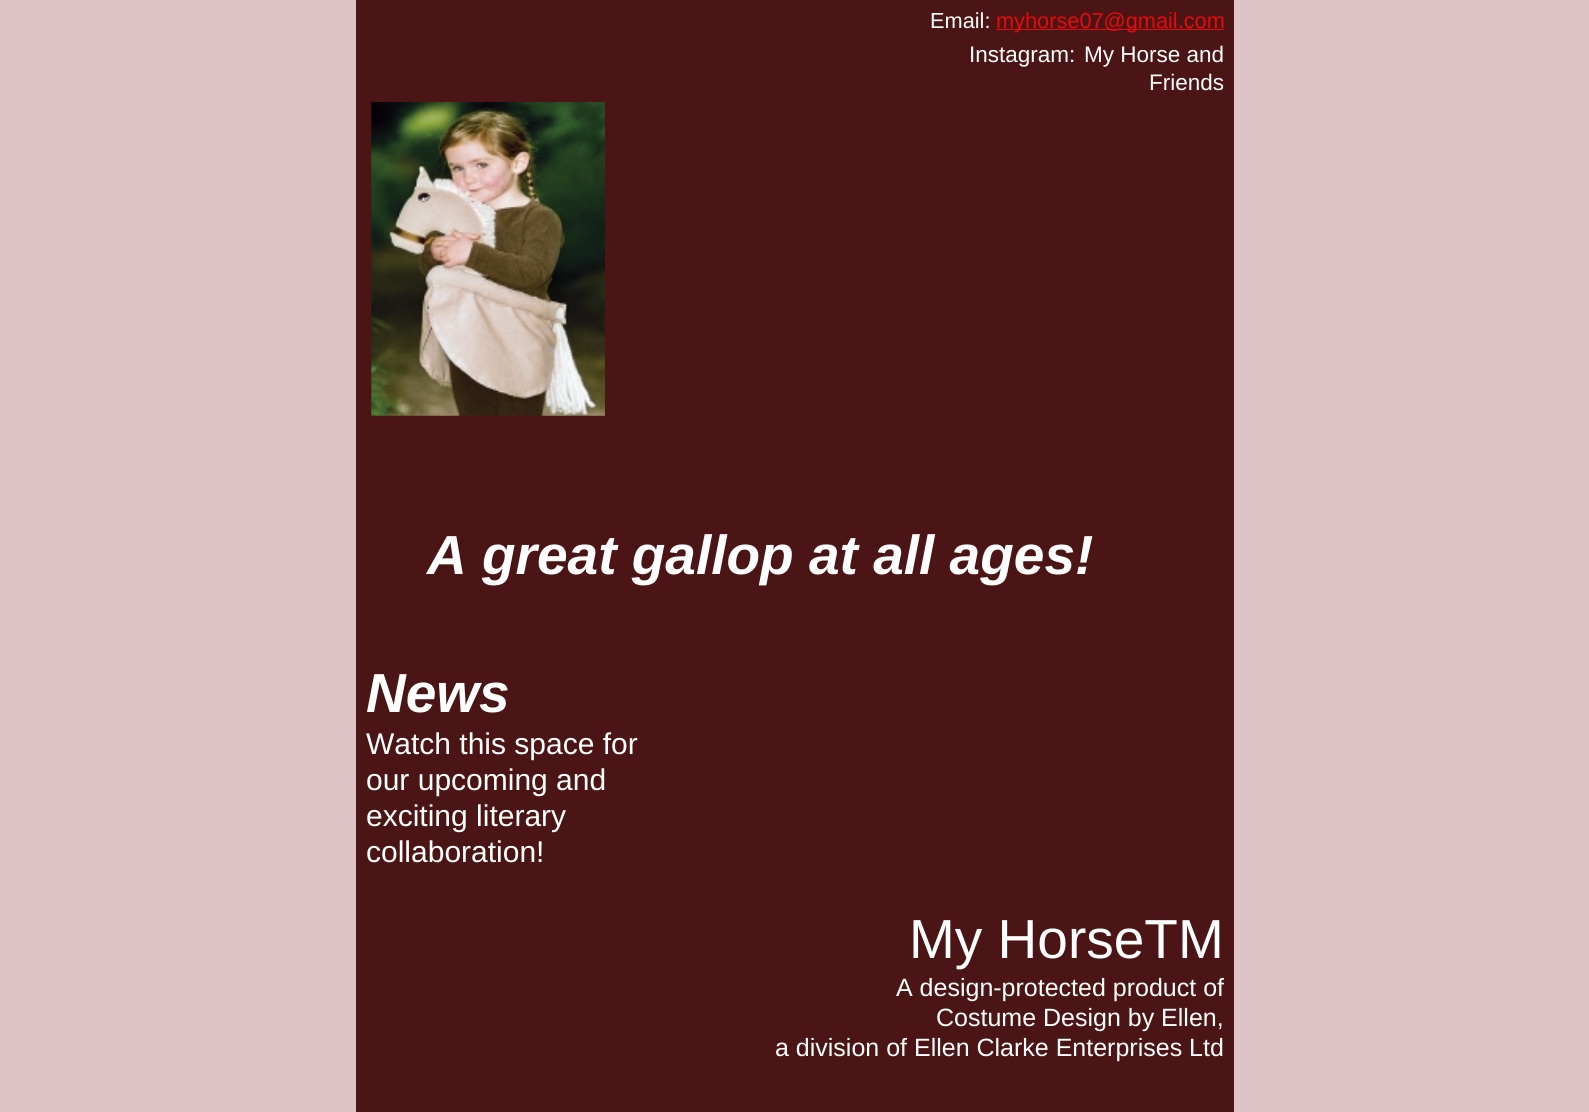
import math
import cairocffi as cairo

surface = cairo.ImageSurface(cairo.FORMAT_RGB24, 1589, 1112)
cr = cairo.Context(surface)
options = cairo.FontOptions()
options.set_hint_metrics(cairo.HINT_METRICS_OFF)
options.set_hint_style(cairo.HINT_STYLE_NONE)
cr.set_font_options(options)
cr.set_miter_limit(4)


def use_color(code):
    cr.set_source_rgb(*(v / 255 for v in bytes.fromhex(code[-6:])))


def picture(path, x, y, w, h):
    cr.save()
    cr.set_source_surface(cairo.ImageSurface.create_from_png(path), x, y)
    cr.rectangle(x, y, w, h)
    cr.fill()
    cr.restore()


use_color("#dec4c4")
cr.paint()
use_color("#4c1515")
cr.rectangle(356, 0, 878, 1112)
cr.fill()
cr.select_font_face("Liberation Sans")
cr.set_font_size(21.75)
use_color("#ffffff")
cr.move_to(930, 28)
cr.show_text("Email:")
use_color("#e60a0b")
cr.rectangle(996, 29, 228, 1)
cr.fill()
cr.move_to(996, 28)
cr.show_text("myhorse07@gmail.com")
cr.set_font_size(22.5)
use_color("#ffffff")
cr.move_to(969, 62)
cr.show_text("Instagram:")
cr.move_to(1084, 62)
cr.show_text("My Horse and")
cr.move_to(1149, 90)
cr.show_text("Friends")
picture("img1.png", 371, 102, 234, 314)
cr.select_font_face("Liberation Sans", cairo.FONT_SLANT_ITALIC, cairo.FONT_WEIGHT_BOLD)
cr.set_font_size(55)
cr.move_to(427, 574)
cr.show_text("A great gallop at all ages!")
cr.move_to(366, 712)
cr.show_text("News")
cr.select_font_face("Liberation Sans")
cr.set_font_size(30)
cr.move_to(366, 754)
cr.show_text("Watch this space for")
cr.move_to(366, 790)
cr.show_text("our upcoming and")
cr.move_to(366, 826)
cr.show_text("exciting literary")
cr.move_to(366, 862)
cr.show_text("collaboration!")
cr.set_font_size(55)
cr.move_to(909, 958)
cr.show_text("My HorseTM")
cr.set_font_size(25)
cr.move_to(896, 996)
cr.show_text("A design-protected product of")
cr.move_to(936, 1026)
cr.show_text("Costume Design by Ellen,")
cr.move_to(775, 1056)
cr.show_text("a division of Ellen Clarke Enterprises Ltd")
surface.write_to_png("result.png")
